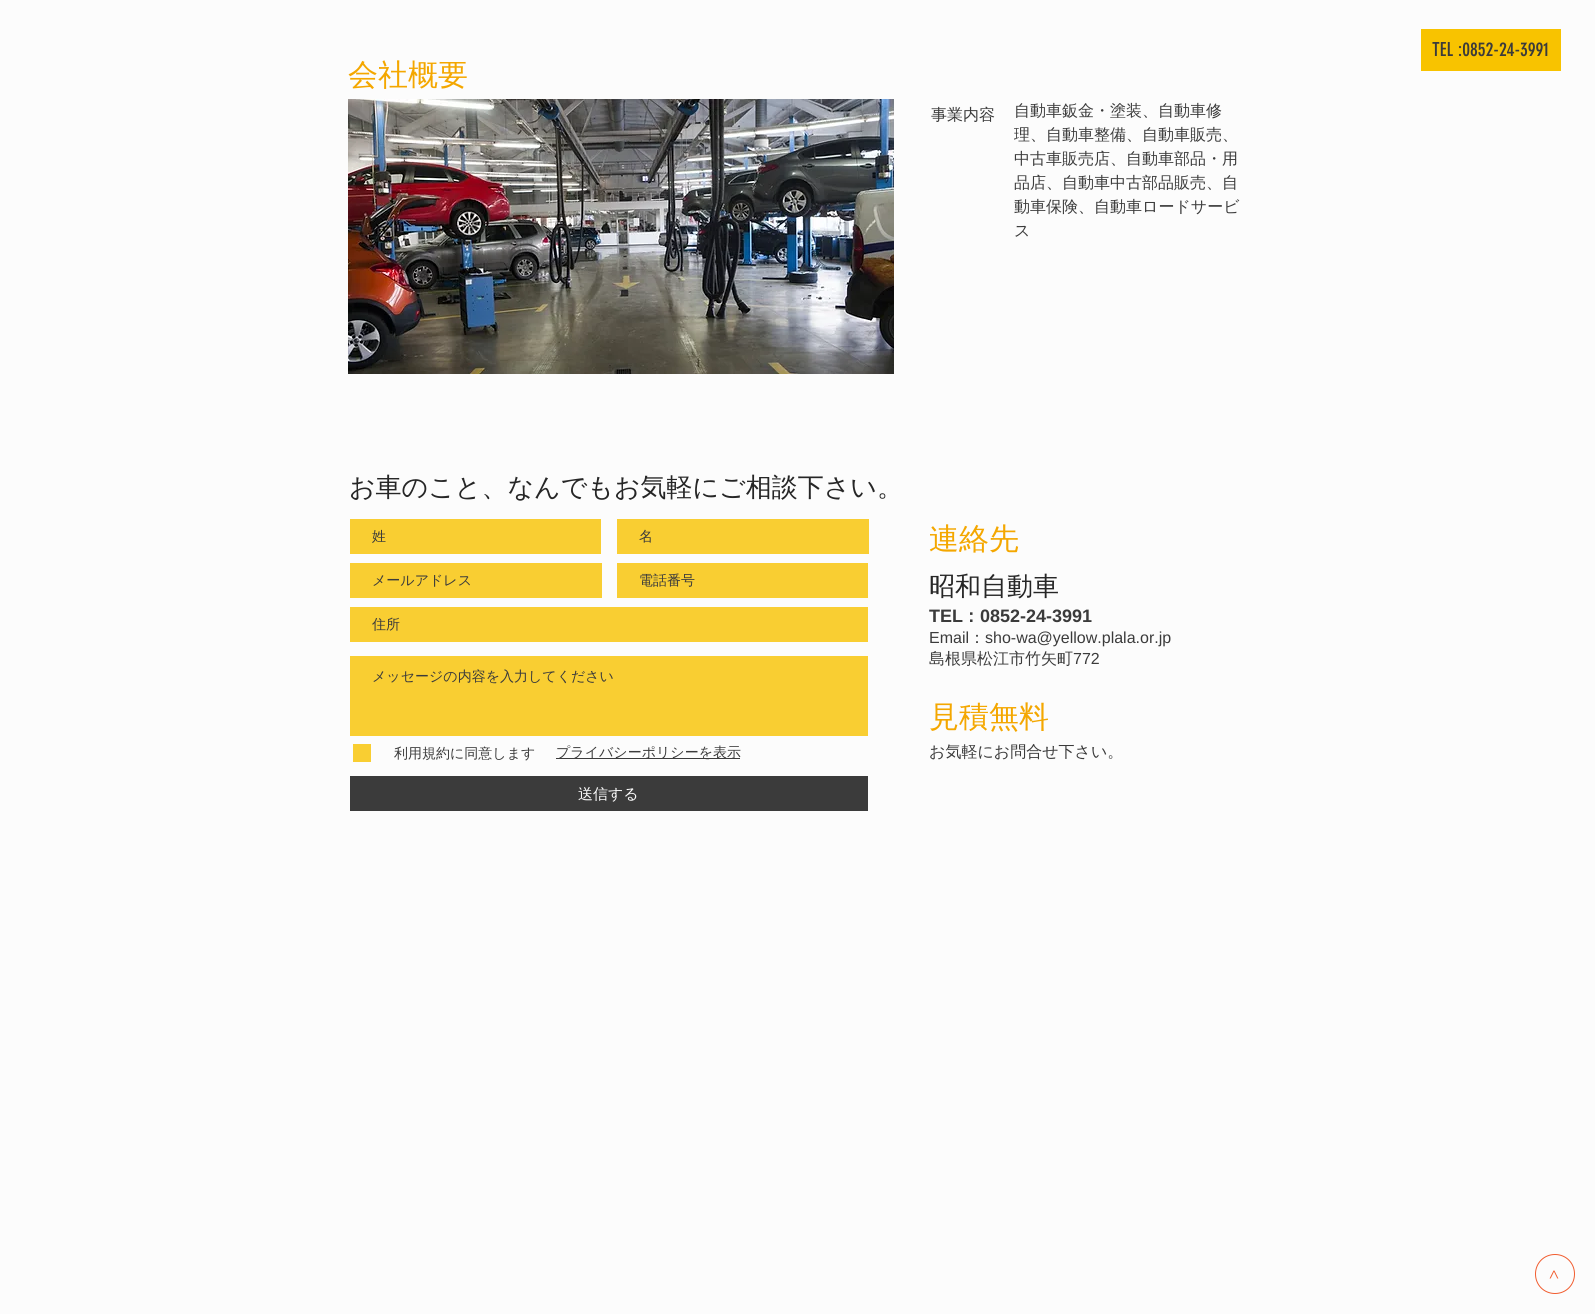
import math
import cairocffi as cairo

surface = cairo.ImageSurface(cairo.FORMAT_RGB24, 1595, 1314)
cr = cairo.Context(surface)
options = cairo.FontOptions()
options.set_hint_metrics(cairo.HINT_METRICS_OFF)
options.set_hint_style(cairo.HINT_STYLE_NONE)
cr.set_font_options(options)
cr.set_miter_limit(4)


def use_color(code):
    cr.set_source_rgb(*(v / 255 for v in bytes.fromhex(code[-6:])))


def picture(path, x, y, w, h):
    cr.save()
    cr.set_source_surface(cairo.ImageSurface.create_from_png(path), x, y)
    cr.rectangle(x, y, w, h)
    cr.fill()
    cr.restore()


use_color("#fcfcfc")
cr.paint()
use_color("#f8c300")
cr.rectangle(1421, 29, 140, 42)
cr.fill()
cr.select_font_face("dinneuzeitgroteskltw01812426")
cr.set_font_size(19)
use_color("#3b3b3b")
cr.move_to(1432, 56)
cr.show_text("TEL :0852-24-3991")
cr.select_font_face("WenQuanYi Zen Hei Medium")
cr.set_font_size(30)
use_color("#f4a700")
cr.move_to(348, 85)
cr.show_text("会社概要")
picture("img1.png", 348, 99, 546, 275)
cr.set_font_size(16)
use_color("#3b3b3b")
cr.move_to(931, 120)
cr.show_text("事業内容")
cr.move_to(1014, 116)
cr.show_text("自動車鈑金・塗装、自動車修")
cr.move_to(1014, 140)
cr.show_text("理、自動車整備、自動車販売、")
cr.move_to(1014, 164)
cr.show_text("中古車販売店、自動車部品・用")
cr.move_to(1014, 188)
cr.show_text("品店、自動車中古部品販売、自")
cr.move_to(1014, 212)
cr.show_text("動車保険、自動車ロードサービ")
cr.move_to(1014, 236)
cr.show_text("ス")
cr.set_font_size(26)
use_color("#262626")
cr.move_to(349, 496)
cr.show_text("お車のこと、なんでもお気軽にご相談下さい。")
use_color("#f9ce32")
cr.rectangle(350, 519, 251, 35)
cr.fill()
cr.set_font_size(14)
use_color("#3b3b3b")
cr.move_to(372, 541)
cr.show_text("姓")
use_color("#f9ce32")
cr.rectangle(617, 519, 252, 35)
cr.fill()
use_color("#3b3b3b")
cr.move_to(639, 541)
cr.show_text("名")
use_color("#f9ce32")
cr.rectangle(350, 563, 252, 35)
cr.fill()
use_color("#3b3b3b")
cr.move_to(372, 585)
cr.show_text("メールアドレス")
use_color("#f9ce32")
cr.rectangle(617, 563, 251, 35)
cr.fill()
use_color("#3b3b3b")
cr.move_to(639, 585)
cr.show_text("電話番号")
use_color("#f9ce32")
cr.rectangle(350, 607, 518, 35)
cr.fill()
use_color("#3b3b3b")
cr.move_to(372, 629)
cr.show_text("住所")
use_color("#f9ce32")
cr.rectangle(350, 656, 518, 80)
cr.fill()
use_color("#3b3b3b")
cr.move_to(372, 681)
cr.show_text("メッセージの内容を入力してください")
use_color("#f9ce32")
cr.rectangle(353, 744, 18, 18)
cr.fill()
use_color("#3b3b3b")
cr.move_to(394, 758)
cr.show_text("利用規約に同意します")
cr.rectangle(556, 758, 184, 1)
cr.fill()
cr.move_to(556, 757)
cr.show_text("プライバシーポリシーを表示")
cr.rectangle(350, 776, 518, 35)
cr.fill()
cr.set_font_size(15)
use_color("#fcfcfc")
cr.move_to(578, 799)
cr.show_text("送信する")
cr.set_font_size(30)
use_color("#f4a700")
cr.move_to(929, 549)
cr.show_text("連絡先")
cr.set_font_size(26)
use_color("#262626")
cr.move_to(929, 595)
cr.show_text("昭和自動車")
cr.select_font_face("Liberation Sans", cairo.FONT_SLANT_NORMAL, cairo.FONT_WEIGHT_BOLD)
cr.set_font_size(18)
use_color("#3b3b3b")
cr.move_to(929, 622)
cr.show_text("TEL")
cr.select_font_face("WenQuanYi Zen Hei", cairo.FONT_SLANT_NORMAL, cairo.FONT_WEIGHT_BOLD)
cr.move_to(962, 622)
cr.show_text("：")
cr.select_font_face("Liberation Sans", cairo.FONT_SLANT_NORMAL, cairo.FONT_WEIGHT_BOLD)
cr.move_to(980, 622)
cr.show_text("0852-24-3991")
cr.select_font_face("Liberation Sans")
cr.set_font_size(16)
cr.move_to(929, 643)
cr.show_text("Email")
cr.select_font_face("WenQuanYi Zen Hei Medium")
cr.move_to(969, 643)
cr.show_text("：")
cr.select_font_face("Liberation Sans")
cr.move_to(985, 643)
cr.show_text("sho-wa@yellow.plala.or.jp")
cr.select_font_face("WenQuanYi Zen Hei Medium")
cr.move_to(929, 664)
cr.show_text("島根県松江市竹矢町")
cr.select_font_face("Liberation Sans")
cr.move_to(1073, 664)
cr.show_text("772")
cr.select_font_face("WenQuanYi Zen Hei Medium")
cr.set_font_size(30)
use_color("#f4a700")
cr.move_to(929, 727)
cr.show_text("見積無料")
cr.set_font_size(16)
use_color("#3b3b3b")
cr.move_to(929, 757)
cr.show_text("お気軽にお問合せ下さい。")
cr.new_path()
cr.move_to(1535.5, 1274)
cr.curve_to(1535.5, 1263, 1544, 1254.5, 1555, 1254.5)
cr.curve_to(1566, 1254.5, 1574.5, 1263, 1574.5, 1274)
cr.curve_to(1574.5, 1285, 1566, 1293.5, 1555, 1293.5)
cr.curve_to(1544, 1293.5, 1535.5, 1285, 1535.5, 1274)
cr.close_path()
use_color("#f15d30")
cr.set_line_width(1)
cr.stroke()
cr.select_font_face("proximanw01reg")
cr.set_font_size(18)
cr.save()
cr.translate(1560, 1279)
cr.rotate(-90 * math.pi / 180)
cr.move_to(0, 0)
cr.show_text(">")
cr.restore()
surface.write_to_png("result.png")
